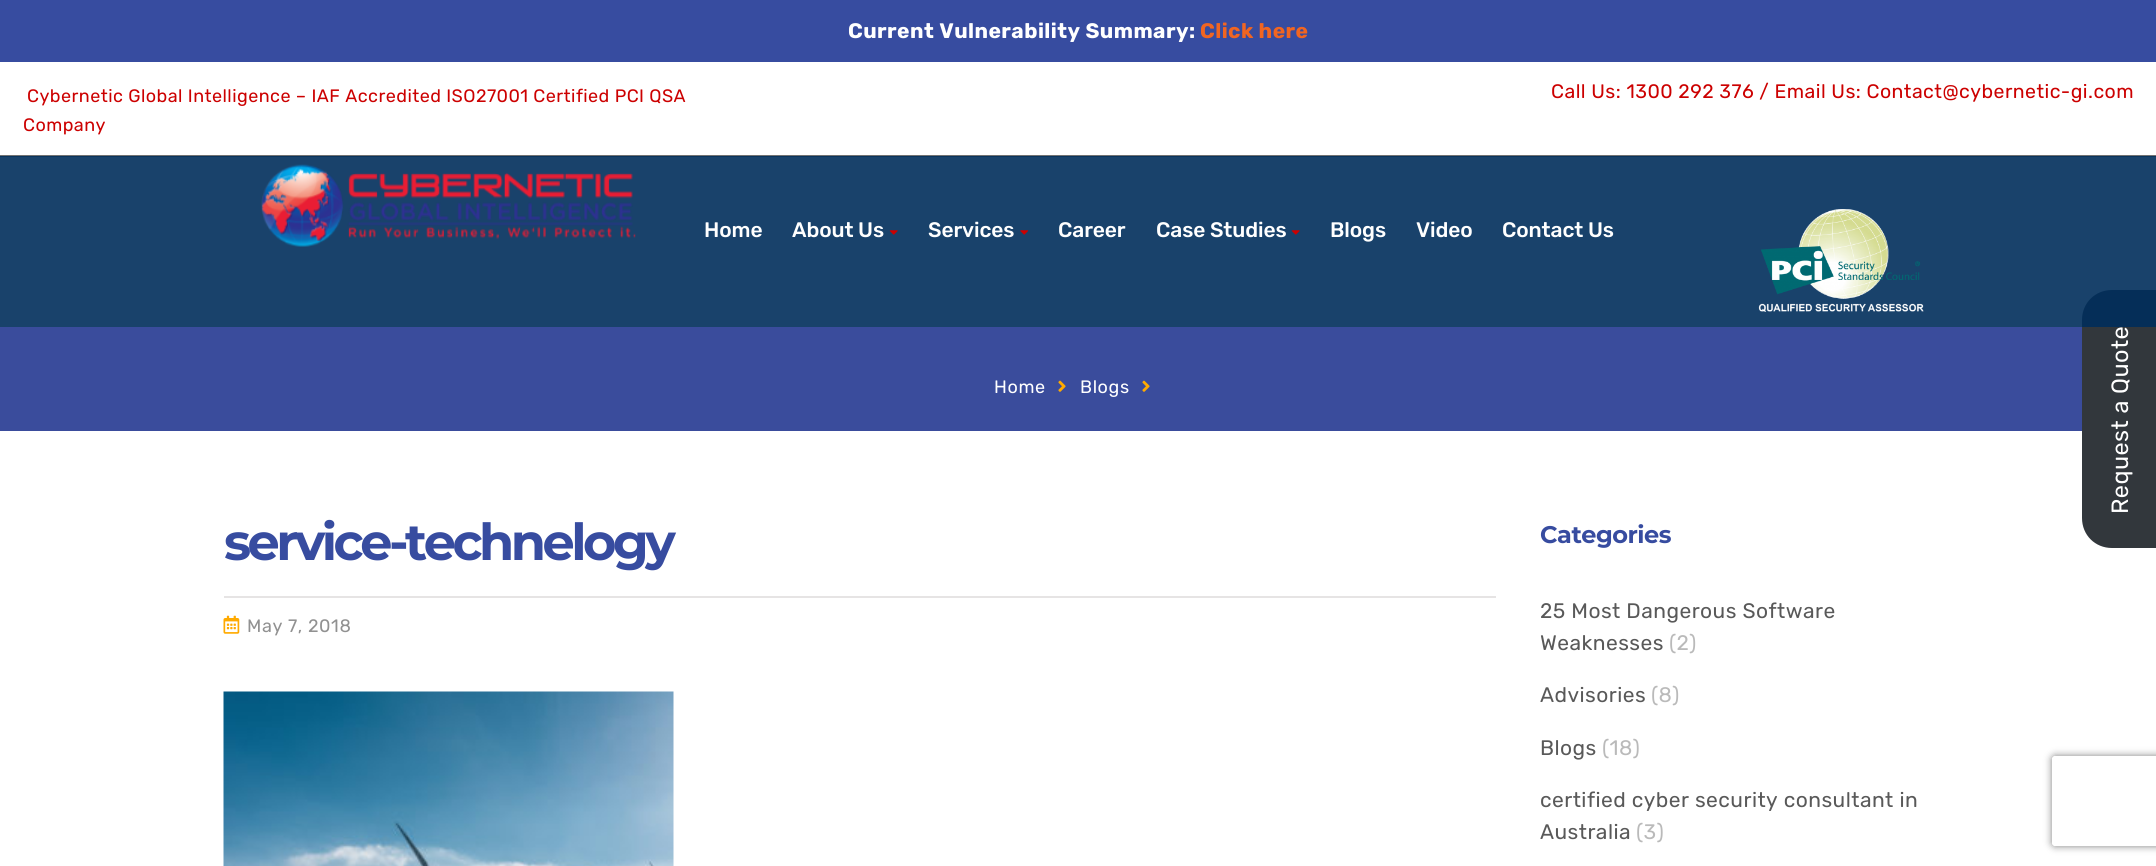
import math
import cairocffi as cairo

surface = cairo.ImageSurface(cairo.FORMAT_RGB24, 2156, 866)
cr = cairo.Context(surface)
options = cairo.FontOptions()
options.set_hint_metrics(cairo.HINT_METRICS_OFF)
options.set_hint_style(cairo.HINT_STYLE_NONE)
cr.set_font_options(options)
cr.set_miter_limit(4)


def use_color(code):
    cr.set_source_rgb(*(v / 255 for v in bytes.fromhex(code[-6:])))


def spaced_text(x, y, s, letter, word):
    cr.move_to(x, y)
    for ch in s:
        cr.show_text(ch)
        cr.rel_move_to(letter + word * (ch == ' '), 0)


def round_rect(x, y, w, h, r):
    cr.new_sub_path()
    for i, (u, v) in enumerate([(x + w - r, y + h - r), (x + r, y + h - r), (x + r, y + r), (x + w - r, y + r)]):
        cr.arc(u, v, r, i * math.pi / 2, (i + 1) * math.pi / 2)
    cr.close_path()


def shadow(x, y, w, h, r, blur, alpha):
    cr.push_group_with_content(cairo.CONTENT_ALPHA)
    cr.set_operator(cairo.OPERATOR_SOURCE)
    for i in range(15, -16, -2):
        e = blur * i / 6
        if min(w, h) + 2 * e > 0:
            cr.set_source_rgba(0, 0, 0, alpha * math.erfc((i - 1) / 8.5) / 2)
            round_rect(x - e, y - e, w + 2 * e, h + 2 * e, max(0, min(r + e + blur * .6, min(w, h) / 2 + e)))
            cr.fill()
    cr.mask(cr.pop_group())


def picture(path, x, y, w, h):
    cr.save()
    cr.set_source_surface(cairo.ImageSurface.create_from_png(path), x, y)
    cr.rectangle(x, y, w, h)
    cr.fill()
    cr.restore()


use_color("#ffffff")
cr.paint()
use_color("#374ca0")
cr.rectangle(0, 0, 2156, 62)
cr.fill()
cr.select_font_face("Rubik", cairo.FONT_SLANT_NORMAL, cairo.FONT_WEIGHT_BOLD)
cr.set_font_size(21)
use_color("#ffffff")
spaced_text(848, 38, "Current Vulnerability Summary:", 0.45, 0)
use_color("#f16521")
spaced_text(1200, 38, "Click here", 0.45, 0)
use_color("#727272")
cr.rectangle(0, 155, 2156, 2)
cr.fill()
cr.select_font_face("Rubik Light")
cr.set_font_size(18)
use_color("#cc0000")
spaced_text(27, 102, "Cybernetic Global Intelligence – IAF Accredited ISO27001 Certified PCI QSA", 0.45, 0)
spaced_text(23, 131, "Company", 0.45, 0)
cr.set_font_size(19.5)
spaced_text(1551, 98, "Call Us: 1300 292 376 / Email Us: Contact@cybernetic-gi.com", 0.45, 0)
use_color("#32373c")
cr.new_path()
cr.move_to(2082, 518)
cr.line_to(2082, 320)
cr.curve_to(2082, 303, 2095, 290, 2112, 290)
cr.line_to(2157, 290)
cr.line_to(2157, 548)
cr.line_to(2112, 548)
cr.curve_to(2095, 548, 2082, 535, 2082, 518)
cr.close_path()
cr.fill()
cr.set_font_size(23.5)
use_color("#ffffff")
cr.save()
cr.translate(2128, 514)
cr.rotate(-90 * math.pi / 180)
spaced_text(0, 0, "Request a Quote", 0.45, 0)
cr.restore()
cr.set_source_rgba(0, 0.18, 0.357, 0.9)
cr.rectangle(0, 156, 2156, 171)
cr.fill()
picture("img1.png", 261, 164, 375, 83)
cr.select_font_face("Rubik Medium")
cr.set_font_size(21)
use_color("#ffffff")
spaced_text(704, 237, "Home", -0.1, 0)
spaced_text(792, 237, "About Us", -0.1, 0)
picture("img2.png", 889, 230, 9, 5)
spaced_text(928, 237, "Services", -0.1, 0)
picture("img3.png", 1020, 230, 9, 5)
spaced_text(1058, 237, "Career", -0.1, 0)
spaced_text(1156, 237, "Case Studies", -0.1, 0)
picture("img2.png", 1291, 230, 9, 5)
spaced_text(1330, 237, "Blogs", -0.1, 0)
spaced_text(1416, 237, "Video", -0.1, 0)
spaced_text(1502, 237, "Contact Us", -0.1, 0)
picture("img4.png", 1758, 209, 166, 103)
use_color("#3a4c9c")
cr.rectangle(0, 327, 2082, 104)
cr.fill()
cr.select_font_face("Rubik Light")
cr.set_font_size(18)
use_color("#ffffff")
spaced_text(994, 393, "Home", 0.6, 0)
picture("img5.png", 1058, 380, 8, 12)
spaced_text(1080, 393, "Blogs", 0.6, 0)
picture("img5.png", 1142, 380, 8, 12)
use_color("#e6e4e4")
cr.rectangle(224, 596, 1272, 2)
cr.fill()
cr.select_font_face("Montserrat", cairo.FONT_SLANT_NORMAL, cairo.FONT_WEIGHT_BOLD)
cr.set_font_size(51)
use_color("#374ca0")
spaced_text(224, 560, "service-technelogy", -3.5, 0)
picture("img6.png", 223, 615, 17, 19)
cr.select_font_face("Rubik Light")
cr.set_font_size(18)
use_color("#919191")
spaced_text(247, 632, "May 7, 2018", 0.6, 0)
picture("img7.png", 223, 691, 451, 175)
cr.select_font_face("Montserrat", cairo.FONT_SLANT_NORMAL, cairo.FONT_WEIGHT_BOLD)
cr.set_font_size(24)
use_color("#374ca0")
spaced_text(1540, 543, "Categories", -0.5, 0)
cr.select_font_face("Rubik Light")
cr.set_font_size(21)
use_color("#595959")
spaced_text(1540, 618, "25 Most Dangerous Software", 0.45, 0)
spaced_text(1540, 650, "Weaknesses", 0.45, 0)
use_color("#bababa")
spaced_text(1669, 650, "(2)", 0.45, 0)
use_color("#595959")
spaced_text(1540, 702, "Advisories", 0.45, 0)
use_color("#bababa")
spaced_text(1651, 702, "(8)", 0.45, 0)
use_color("#595959")
spaced_text(1540, 755, "Blogs", 0.45, 0)
use_color("#bababa")
spaced_text(1602, 755, "(18)", 0.45, 0)
use_color("#595959")
spaced_text(1540, 807, "certified cyber security consultant in", 0.45, 0)
spaced_text(1540, 839, "Australia", 0.45, 0)
use_color("#bababa")
spaced_text(1636, 839, "(3)", 0.45, 0)
cr.save()
cr.set_fill_rule(cairo.FILL_RULE_EVEN_ODD)
cr.new_path()
cr.move_to(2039, 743)
cr.line_to(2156, 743)
cr.line_to(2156, 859)
cr.line_to(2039, 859)
cr.close_path()
cr.move_to(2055, 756)
cr.line_to(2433, 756)
cr.curve_to(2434.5, 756, 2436, 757.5, 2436, 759)
cr.line_to(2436, 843)
cr.curve_to(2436, 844.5, 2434.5, 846, 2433, 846)
cr.line_to(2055, 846)
cr.curve_to(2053.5, 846, 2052, 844.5, 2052, 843)
cr.line_to(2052, 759)
cr.curve_to(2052, 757.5, 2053.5, 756, 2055, 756)
cr.close_path()
cr.clip()
use_color("#808080")
shadow(2052, 756, 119, 90, 3, 4, 1)
cr.restore()
surface.write_to_png("result.png")
